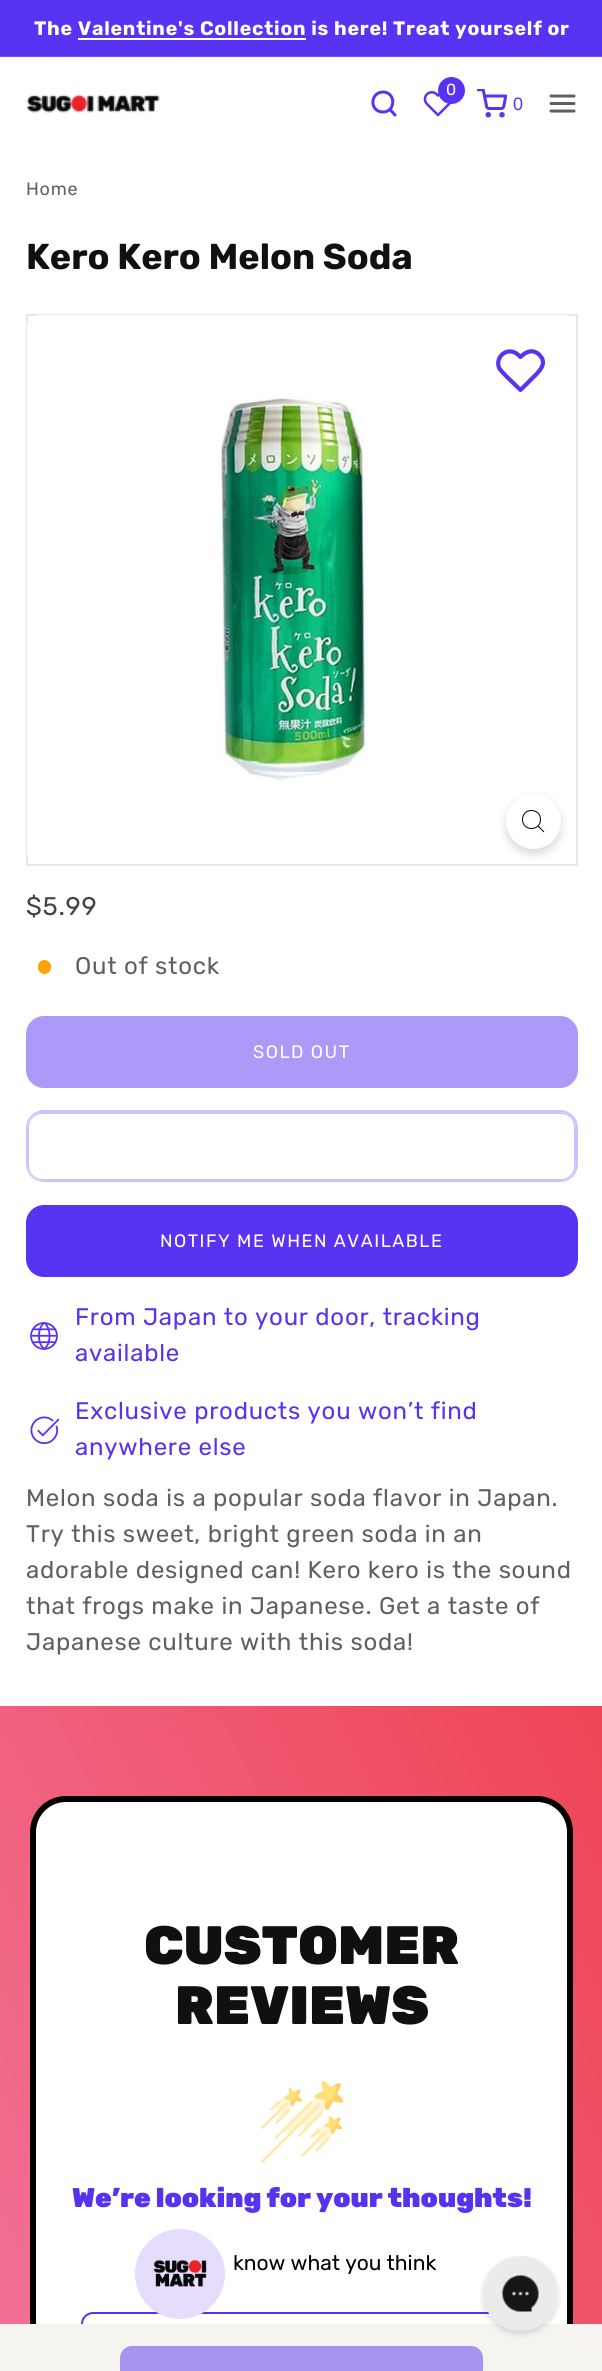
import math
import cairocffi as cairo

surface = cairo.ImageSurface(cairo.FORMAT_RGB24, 602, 2371)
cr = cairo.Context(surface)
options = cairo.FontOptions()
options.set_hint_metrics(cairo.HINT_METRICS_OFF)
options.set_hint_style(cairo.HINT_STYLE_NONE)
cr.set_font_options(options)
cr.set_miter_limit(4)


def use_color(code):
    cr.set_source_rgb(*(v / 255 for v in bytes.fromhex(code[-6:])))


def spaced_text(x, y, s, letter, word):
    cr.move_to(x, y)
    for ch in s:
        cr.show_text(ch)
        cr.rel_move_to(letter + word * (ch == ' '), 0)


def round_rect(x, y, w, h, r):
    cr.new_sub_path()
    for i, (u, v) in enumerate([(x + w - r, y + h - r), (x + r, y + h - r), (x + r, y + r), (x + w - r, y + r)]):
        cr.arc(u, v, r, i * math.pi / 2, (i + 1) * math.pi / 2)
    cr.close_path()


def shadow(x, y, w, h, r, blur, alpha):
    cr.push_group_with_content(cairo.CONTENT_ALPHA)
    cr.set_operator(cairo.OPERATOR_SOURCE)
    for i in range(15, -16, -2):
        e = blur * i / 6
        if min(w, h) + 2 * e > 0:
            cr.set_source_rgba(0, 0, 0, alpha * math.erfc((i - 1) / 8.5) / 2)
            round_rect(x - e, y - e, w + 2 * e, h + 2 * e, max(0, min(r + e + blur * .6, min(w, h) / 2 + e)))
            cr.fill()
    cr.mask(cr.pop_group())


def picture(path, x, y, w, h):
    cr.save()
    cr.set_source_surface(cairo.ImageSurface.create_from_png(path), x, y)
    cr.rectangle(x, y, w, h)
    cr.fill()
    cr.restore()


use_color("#ffffff")
cr.paint()
use_color("#5833f1")
cr.rectangle(0, 0, 602, 56)
cr.fill()
use_color("#7152f3")
cr.rectangle(0, 56, 602, 1)
cr.fill()
cr.select_font_face("Rubik", cairo.FONT_SLANT_NORMAL, cairo.FONT_WEIGHT_BOLD)
cr.set_font_size(19.5)
use_color("#ffffff")
spaced_text(34, 35, "The Valentine's Collection is here! Treat yourself or", 0.75, 0)
cr.rectangle(78, 38, 228, 2)
cr.fill()
picture("img1.png", 26, 94, 134, 19)
cr.new_path()
cr.move_to(383, 112)
cr.curve_to(396, 112, 396, 92, 383, 92)
cr.curve_to(369.5, 92.5, 369.5, 112, 383, 112)
cr.close_path()
cr.move_to(395, 115)
cr.line_to(390, 109.5)
use_color("#5833f1")
cr.set_line_width(3)
cr.set_line_cap(cairo.LINE_CAP_ROUND)
cr.set_line_join(cairo.LINE_JOIN_ROUND)
cr.stroke()
picture("img2.png", 423, 91, 29, 26)
cr.arc(451.5, 90.5, 13.5, 0, 2 * math.pi)
cr.fill()
cr.select_font_face("Rubik")
cr.set_font_size(16)
use_color("#ffffff")
spaced_text(446, 95, "0", 0.75, 0)
picture("img3.png", 477, 89, 30, 29)
cr.select_font_face("Liberation Sans")
cr.set_font_size(18)
use_color("#5733f0")
cr.move_to(513, 110)
cr.show_text("0")
cr.new_path()
cr.move_to(551, 103.5)
cr.line_to(574, 103.5)
cr.move_to(551, 96)
cr.line_to(574, 96)
cr.move_to(551, 111)
cr.line_to(574, 111)
use_color("#606060")
cr.stroke()
cr.select_font_face("Rubik")
spaced_text(26, 195, "Home", 0.75, 0)
cr.select_font_face("Rubik", cairo.FONT_SLANT_NORMAL, cairo.FONT_WEIGHT_BOLD)
cr.set_font_size(36)
use_color("#101010")
cr.move_to(26, 269)
cr.show_text("Kero Kero Melon Soda")
cr.rectangle(27, 315, 550, 550)
use_color("#e8e8e1")
cr.set_line_width(2)
cr.set_line_cap(cairo.LINE_CAP_BUTT)
cr.set_line_join(cairo.LINE_JOIN_MITER)
cr.stroke()
use_color("#ffffff")
round_rect(27, 315, 549, 549, 12)
cr.fill()
picture("img4.png", 216, 397, 153, 385)
use_color("#000000")
shadow(506, 798, 55, 56, 27.5, 4.5, 0.15)
use_color("#ffffff")
cr.arc(533.5, 821.5, 27.5, 0, 2 * math.pi)
cr.fill()
cr.new_path()
cr.move_to(540.5, 819.5)
cr.curve_to(540.5, 831.5, 522.5, 831.5, 522.5, 819.5)
cr.curve_to(522.5, 807.5, 540.5, 807.5, 540.5, 819.5)
cr.close_path()
cr.move_to(544, 832)
cr.line_to(538, 826)
use_color("#000000")
cr.set_line_width(1)
cr.stroke()
cr.new_path()
cr.move_to(539.5, 355)
cr.curve_to(533, 348.5, 526, 351.5, 520.5, 357)
cr.curve_to(518.5, 355, 516.5, 353, 513.5, 352)
cr.curve_to(504, 349, 495.5, 358.5, 499, 367.5)
cr.curve_to(500.5, 371, 504, 373.5, 506.5, 376.5)
cr.line_to(520.5, 390)
cr.line_to(531.5, 379)
cr.curve_to(538, 372.5, 548.5, 364, 539.5, 355)
cr.close_path()
use_color("#5833f1")
cr.set_line_width(4.2)
cr.set_line_cap(cairo.LINE_CAP_ROUND)
cr.set_line_join(cairo.LINE_JOIN_ROUND)
cr.stroke()
cr.select_font_face("Rubik")
cr.set_font_size(25.5)
use_color("#444444")
spaced_text(26, 915, "$5.99", 0.75, 0)
use_color("#ffa500")
round_rect(38, 960, 13, 14, 6.5)
cr.fill()
cr.set_font_size(24)
use_color("#606060")
spaced_text(75, 974, "Out of stock", 0.75, 0)
use_color("#ac99f8")
round_rect(27, 1017, 550, 70, 17)
cr.fill_preserve()
cr.set_line_width(2)
cr.set_line_cap(cairo.LINE_CAP_BUTT)
cr.set_line_join(cairo.LINE_JOIN_MITER)
cr.stroke()
cr.set_font_size(18)
use_color("#ffffff")
spaced_text(253, 1058, "SOLD OUT", 1.5, 0)
use_color("#cdc2fb")
round_rect(27, 1111, 550, 70, 17)
cr.fill_preserve()
cr.stroke()
use_color("#ffffff")
round_rect(27, 1112, 549, 69, 17)
cr.fill()
use_color("#cdc2fb")
cr.set_fill_rule(cairo.FILL_RULE_EVEN_ODD)
cr.new_path()
cr.move_to(44, 1112)
cr.curve_to(35, 1112, 27, 1120, 27, 1129)
cr.line_to(27, 1164)
cr.curve_to(27, 1173, 35, 1181, 44, 1181)
cr.line_to(559, 1181)
cr.curve_to(568, 1181, 576, 1173, 576, 1164)
cr.line_to(576, 1129)
cr.curve_to(576, 1120, 568, 1112, 559, 1112)
cr.close_path()
cr.move_to(42, 1114)
cr.curve_to(35, 1114, 29, 1120, 29, 1127)
cr.line_to(29, 1166)
cr.curve_to(29, 1173, 35, 1179, 42, 1179)
cr.line_to(561, 1179)
cr.curve_to(568, 1179, 574, 1173, 574, 1166)
cr.line_to(574, 1127)
cr.curve_to(574, 1120, 568, 1114, 561, 1114)
cr.close_path()
cr.fill()
use_color("#5833f1")
round_rect(27, 1206, 550, 70, 17)
cr.fill_preserve()
cr.stroke()
use_color("#ffffff")
spaced_text(160, 1247, "NOTIFY ME WHEN AVAILABLE", 1.5, 0)
picture("img5.png", 30, 1322, 28, 28)
cr.set_font_size(24)
use_color("#5733f0")
spaced_text(75, 1325, "From Japan to your door, tracking", 0.75, 0)
spaced_text(75, 1361, "available", 0.75, 0)
picture("img6.png", 30, 1416, 30, 28)
spaced_text(75, 1419, "Exclusive products you won’t find", 0.75, 0)
spaced_text(75, 1455, "anywhere else", 0.75, 0)
use_color("#606060")
spaced_text(26, 1506, "Melon soda is a popular soda flavor in Japan.", 0.75, 0)
spaced_text(26, 1542, "Try this sweet, bright green soda in an", 0.75, 0)
spaced_text(26, 1578, "adorable designed can! Kero kero is the sound", 0.75, 0)
spaced_text(26, 1614, "that frogs make in Japanese. Get a taste of", 0.75, 0)
spaced_text(26, 1650, "Japanese culture with this soda!", 0.75, 0)
gradient = cairo.LinearGradient(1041, 1764, -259, 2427)
gradient.add_color_stop_rgba(0, 0.933, 0.192, 0.227, 1)
gradient.add_color_stop_rgba(1, 0.949, 0.498, 0.659, 1)
cr.set_source(gradient)
cr.rectangle(0, 1706, 602, 618)
cr.fill()
use_color("#ffffff")
round_rect(33, 1799, 537, 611, 33)
cr.fill_preserve()
use_color("#000000")
cr.set_line_width(6)
cr.stroke()
round_rect(82, 2313, 439, 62, 11)
use_color("#5833f1")
cr.set_line_width(2)
cr.stroke()
use_color("#f6f4f1")
cr.rectangle(0, 2324, 602, 47)
cr.fill()
use_color("#a794f1")
round_rect(121, 2347, 361, 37, 11)
cr.fill_preserve()
cr.stroke()
cr.select_font_face("Rubik Black")
cr.set_font_size(54)
use_color("#101010")
cr.move_to(144, 1964)
cr.show_text("CUSTOMER")
cr.move_to(175, 2024)
cr.show_text("REVIEWS")
picture("img7.png", 261, 2081, 83, 82)
cr.set_font_size(27)
use_color("#5733f0")
cr.move_to(72, 2207)
cr.show_text("We’re looking for your thoughts!")
cr.select_font_face("Rubik")
cr.set_font_size(21)
use_color("#000000")
cr.move_to(233, 2270)
cr.show_text("know what you think")
use_color("#e6ddfc")
cr.new_path()
cr.arc(180, 2274, 45, 0, 2 * math.pi)
cr.fill()
picture("img8.png", 153, 2259, 54, 28)
picture("img9.png", 480, 2256, 81, 81)
surface.write_to_png("result.png")
